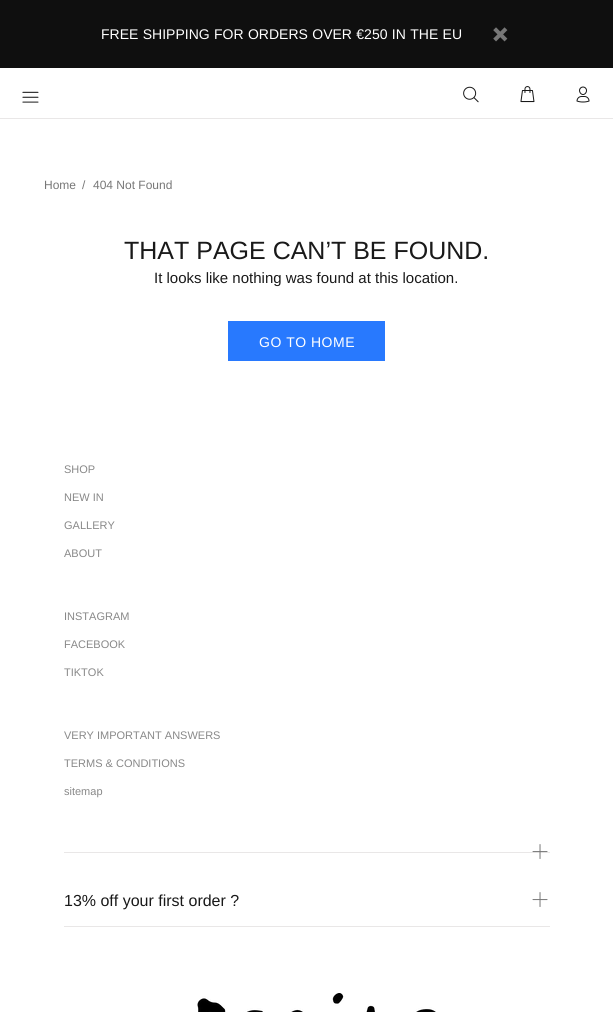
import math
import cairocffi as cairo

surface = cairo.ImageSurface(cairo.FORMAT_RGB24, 613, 1012)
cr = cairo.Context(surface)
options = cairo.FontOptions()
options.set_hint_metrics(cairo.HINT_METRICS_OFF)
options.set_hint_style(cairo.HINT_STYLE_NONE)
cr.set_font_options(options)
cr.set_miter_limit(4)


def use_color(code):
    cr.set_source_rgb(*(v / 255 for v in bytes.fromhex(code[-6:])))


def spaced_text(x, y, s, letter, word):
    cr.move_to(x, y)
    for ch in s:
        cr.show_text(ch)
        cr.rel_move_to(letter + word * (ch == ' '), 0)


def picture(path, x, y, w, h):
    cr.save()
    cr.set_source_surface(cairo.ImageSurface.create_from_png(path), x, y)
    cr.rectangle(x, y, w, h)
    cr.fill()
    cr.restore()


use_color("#ffffff")
cr.paint()
use_color("#0f0f0f")
cr.rectangle(0, 0, 613, 68)
cr.fill()
cr.select_font_face("Liberation Sans")
cr.set_font_size(14)
use_color("#ffffff")
spaced_text(101, 39, "FREE SHIPPING FOR ORDERS OVER €250 IN THE EU", 0, 0.5)
picture("img1.png", 493, 27, 15, 15)
picture("img2.png", 22, 91, 17, 12)
picture("img3.png", 463, 86, 16, 17)
picture("img4.png", 520, 86, 15, 17)
picture("img5.png", 576, 86, 14, 17)
use_color("#e9e7e7")
cr.rectangle(0, 118, 613, 1)
cr.fill()
cr.set_font_size(12)
use_color("#777777")
cr.move_to(44, 189)
cr.show_text("Home")
cr.move_to(82, 189)
cr.show_text("/")
cr.move_to(93, 189)
cr.show_text("404 Not Found")
cr.set_font_size(25)
use_color("#191919")
cr.move_to(124, 259)
cr.show_text("THAT PAGE CAN’T BE FOUND.")
cr.set_font_size(15)
cr.move_to(154, 283)
cr.show_text("It looks like nothing was found at this location.")
use_color("#2879fe")
cr.rectangle(228, 321, 157, 40)
cr.fill()
cr.set_font_size(14)
use_color("#ffffff")
spaced_text(259, 347, "GO TO HOME", 0.5, 0)
cr.set_font_size(11)
use_color("#888888")
cr.move_to(64, 473)
cr.show_text("SHOP")
cr.move_to(64, 501)
cr.show_text("NEW IN")
cr.move_to(64, 529)
cr.show_text("GALLERY")
cr.move_to(64, 557)
cr.show_text("ABOUT")
cr.move_to(64, 620)
cr.show_text("INSTAGRAM")
cr.move_to(64, 648)
cr.show_text("FACEBOOK")
cr.move_to(64, 676)
cr.show_text("TIKTOK")
cr.move_to(64, 739)
cr.show_text("VERY IMPORTANT ANSWERS")
cr.move_to(64, 767)
cr.show_text("TERMS & CONDITIONS")
cr.move_to(64, 795)
cr.show_text("sitemap")
use_color("#e9e7e7")
cr.rectangle(64, 852, 486, 1)
cr.fill()
picture("img6.png", 532, 844, 16, 15)
cr.rectangle(64, 926, 486, 1)
cr.fill()
cr.set_font_size(16)
use_color("#191919")
cr.move_to(64, 906)
cr.show_text("13% off your first order ?")
picture("img7.png", 532, 892, 16, 15)
picture("img8.png", 197, 993, 239, 19)
surface.write_to_png("result.png")
